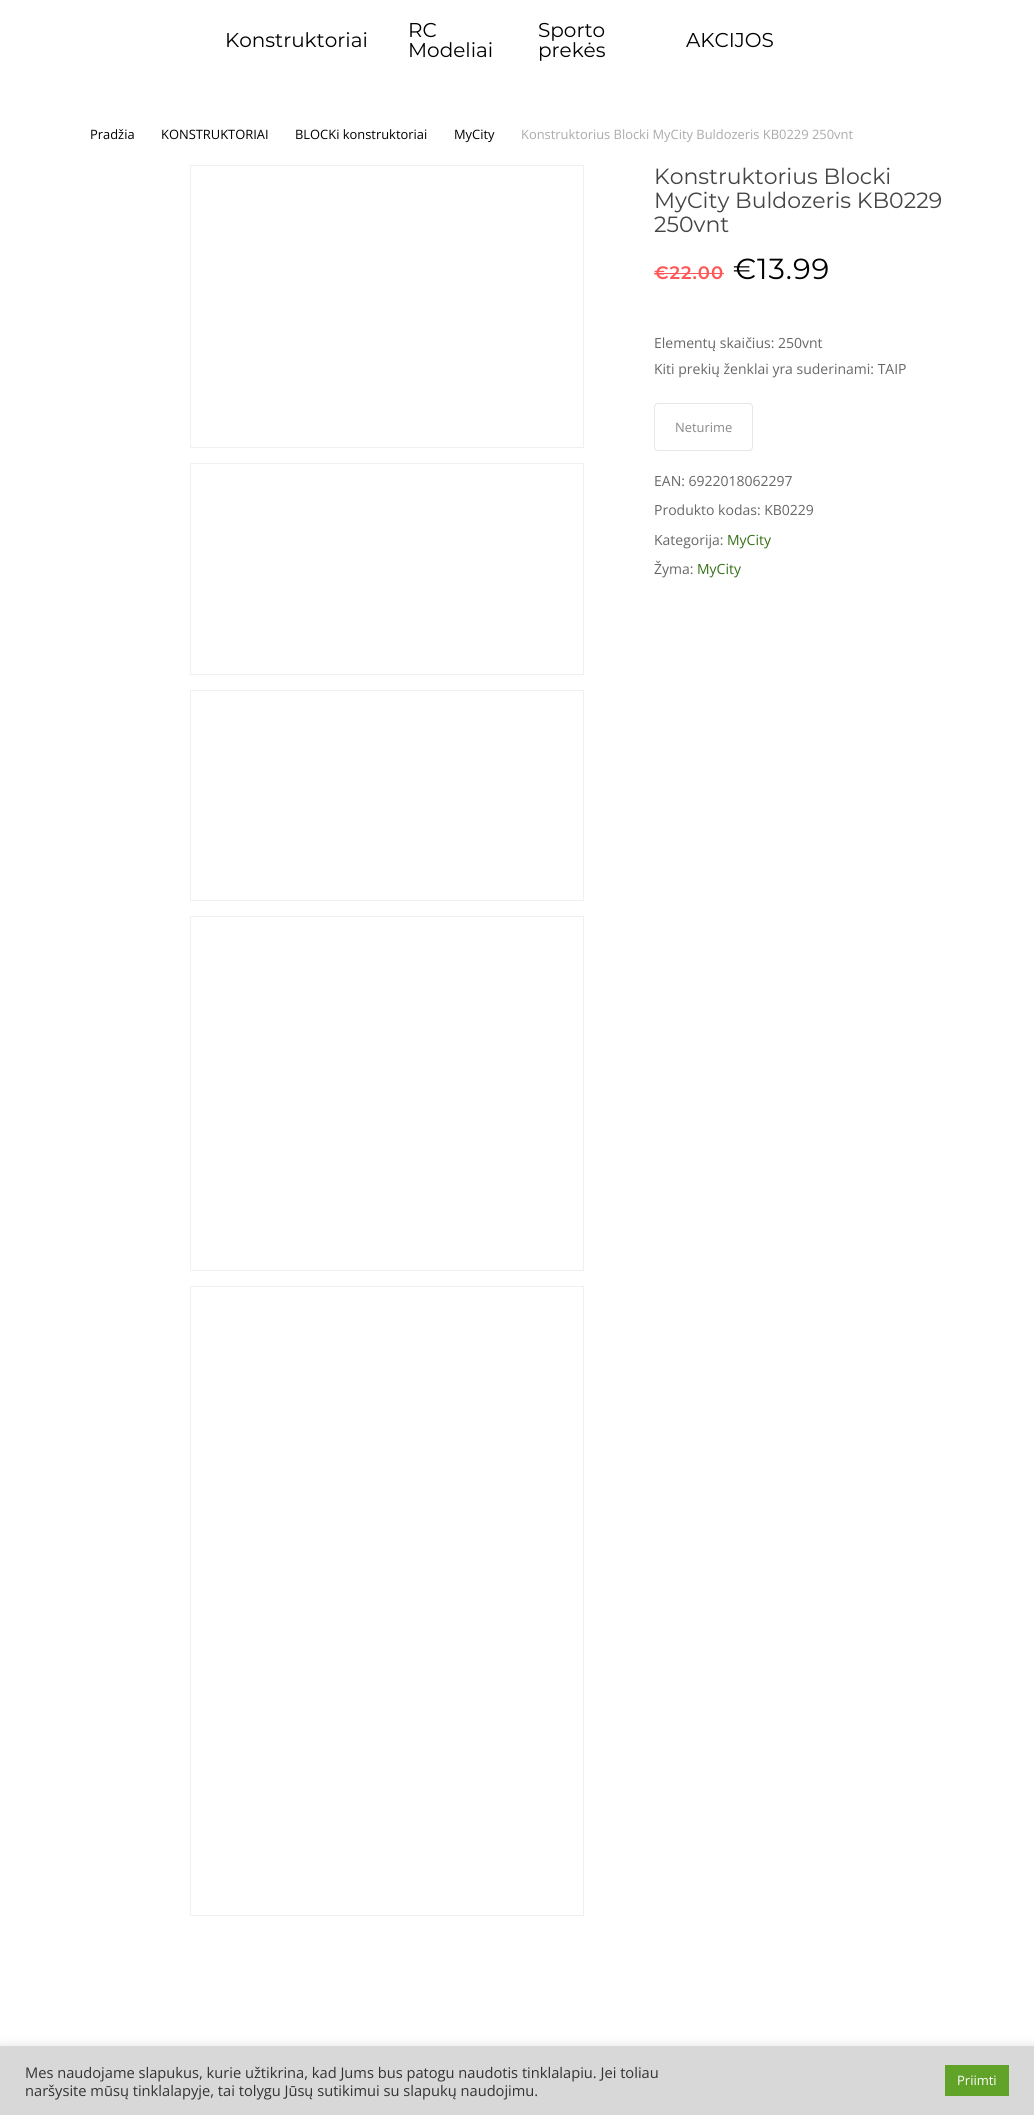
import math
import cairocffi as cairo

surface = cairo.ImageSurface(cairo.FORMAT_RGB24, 1034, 2115)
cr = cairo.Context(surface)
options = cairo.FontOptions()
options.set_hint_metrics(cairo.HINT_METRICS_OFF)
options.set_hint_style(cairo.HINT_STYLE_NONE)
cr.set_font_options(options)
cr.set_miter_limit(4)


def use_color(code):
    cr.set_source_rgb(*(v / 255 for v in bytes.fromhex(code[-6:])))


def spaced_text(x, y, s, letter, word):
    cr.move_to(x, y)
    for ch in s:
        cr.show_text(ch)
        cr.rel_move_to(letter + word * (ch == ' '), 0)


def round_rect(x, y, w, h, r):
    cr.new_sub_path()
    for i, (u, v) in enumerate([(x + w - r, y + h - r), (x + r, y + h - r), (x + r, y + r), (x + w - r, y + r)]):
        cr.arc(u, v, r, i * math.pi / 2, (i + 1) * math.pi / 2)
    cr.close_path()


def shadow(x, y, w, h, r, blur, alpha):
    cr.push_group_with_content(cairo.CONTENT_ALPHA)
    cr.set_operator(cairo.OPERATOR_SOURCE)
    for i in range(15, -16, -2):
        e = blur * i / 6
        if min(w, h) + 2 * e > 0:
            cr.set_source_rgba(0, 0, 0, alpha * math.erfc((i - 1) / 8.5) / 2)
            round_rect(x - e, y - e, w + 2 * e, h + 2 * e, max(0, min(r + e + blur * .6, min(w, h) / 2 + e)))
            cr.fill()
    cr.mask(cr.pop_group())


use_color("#ffffff")
cr.paint()
cr.select_font_face("Montserrat")
cr.set_font_size(20)
use_color("#000000")
cr.move_to(225, 47)
cr.show_text("Konstruktoriai")
cr.move_to(408, 37)
cr.show_text("RC")
cr.move_to(408, 57)
cr.show_text("Modeliai")
cr.move_to(538, 37)
cr.show_text("Sporto")
cr.move_to(538, 57)
cr.show_text("prekės")
cr.move_to(686, 47)
cr.show_text("AKCIJOS")
cr.select_font_face("Open Sans")
cr.set_font_size(12.9)
cr.move_to(90, 139)
cr.show_text("Pradžia")
cr.move_to(161, 139)
cr.show_text("KONSTRUKTORIAI")
cr.move_to(295, 139)
cr.show_text("BLOCKi konstruktoriai")
cr.move_to(454, 139)
cr.show_text("MyCity")
use_color("#ababab")
cr.move_to(521, 139)
cr.show_text("Konstruktorius Blocki MyCity Buldozeris KB0229 250vnt")
cr.rectangle(190.5, 165.5, 393, 282)
use_color("#f0f0f0")
cr.set_line_width(1)
cr.stroke()
cr.rectangle(190.5, 463.5, 393, 211)
cr.stroke()
cr.rectangle(190.5, 690.5, 393, 210)
cr.stroke()
cr.rectangle(190.5, 916.5, 393, 354)
cr.stroke()
cr.rectangle(190.5, 1286.5, 393, 629)
cr.stroke()
cr.select_font_face("Montserrat")
cr.set_font_size(22)
use_color("#444444")
cr.move_to(654, 184)
cr.show_text("Konstruktorius Blocki")
cr.move_to(654, 208)
cr.show_text("MyCity Buldozeris KB0229")
cr.move_to(654, 232)
cr.show_text("250vnt")
cr.select_font_face("Montserrat SemiBold")
cr.set_font_size(18)
use_color("#ff5757")
spaced_text(654, 279, "€22.00", 1, 0)
cr.rectangle(654, 273, 70, 1)
cr.fill()
cr.select_font_face("Montserrat")
cr.set_font_size(29)
use_color("#000000")
spaced_text(733, 279, "€13.99", 1, 0)
cr.select_font_face("Open Sans")
cr.set_font_size(14)
use_color("#676767")
cr.move_to(654, 348)
cr.show_text("Elementų skaičius: 250vnt")
cr.move_to(654, 374)
cr.show_text("Kiti prekių ženklai yra suderinami: TAIP")
round_rect(654.5, 403.5, 98, 47, 3.5)
use_color("#e6e6e6")
cr.stroke()
cr.set_font_size(12.9)
use_color("#888888")
cr.move_to(675, 432)
cr.show_text("Neturime")
cr.set_font_size(14)
use_color("#676767")
cr.move_to(654, 486)
cr.show_text("EAN: 6922018062297")
cr.move_to(654, 515)
cr.show_text("Produkto kodas: KB0229")
cr.move_to(654, 545)
cr.show_text("Kategorija:")
use_color("#357017")
cr.move_to(727, 545)
cr.show_text("MyCity")
use_color("#676767")
cr.move_to(654, 574)
cr.show_text("Žyma:")
use_color("#357017")
cr.move_to(697, 574)
cr.show_text("MyCity")
use_color("#acabab")
shadow(0, 2045, 1034, 69, 0, 5, 0.3)
use_color("#d8d8d8")
cr.rectangle(0, 2046, 1034, 69)
cr.fill()
cr.set_font_size(14.65)
use_color("#333333")
cr.move_to(25, 2078)
cr.show_text("Mes naudojame slapukus, kurie užtikrina, kad Jums bus patogu naudotis tinklalapiu. Jei toliau")
cr.move_to(25, 2096)
cr.show_text("naršysite mūsų tinklalapyje, tai tolygu Jūsų sutikimui su slapukų naudojimu.")
use_color("#61a229")
cr.rectangle(945, 2065, 64, 31)
cr.fill()
cr.set_font_size(13)
use_color("#ffffff")
cr.move_to(957, 2085)
cr.show_text("Priimti")
surface.write_to_png("result.png")
